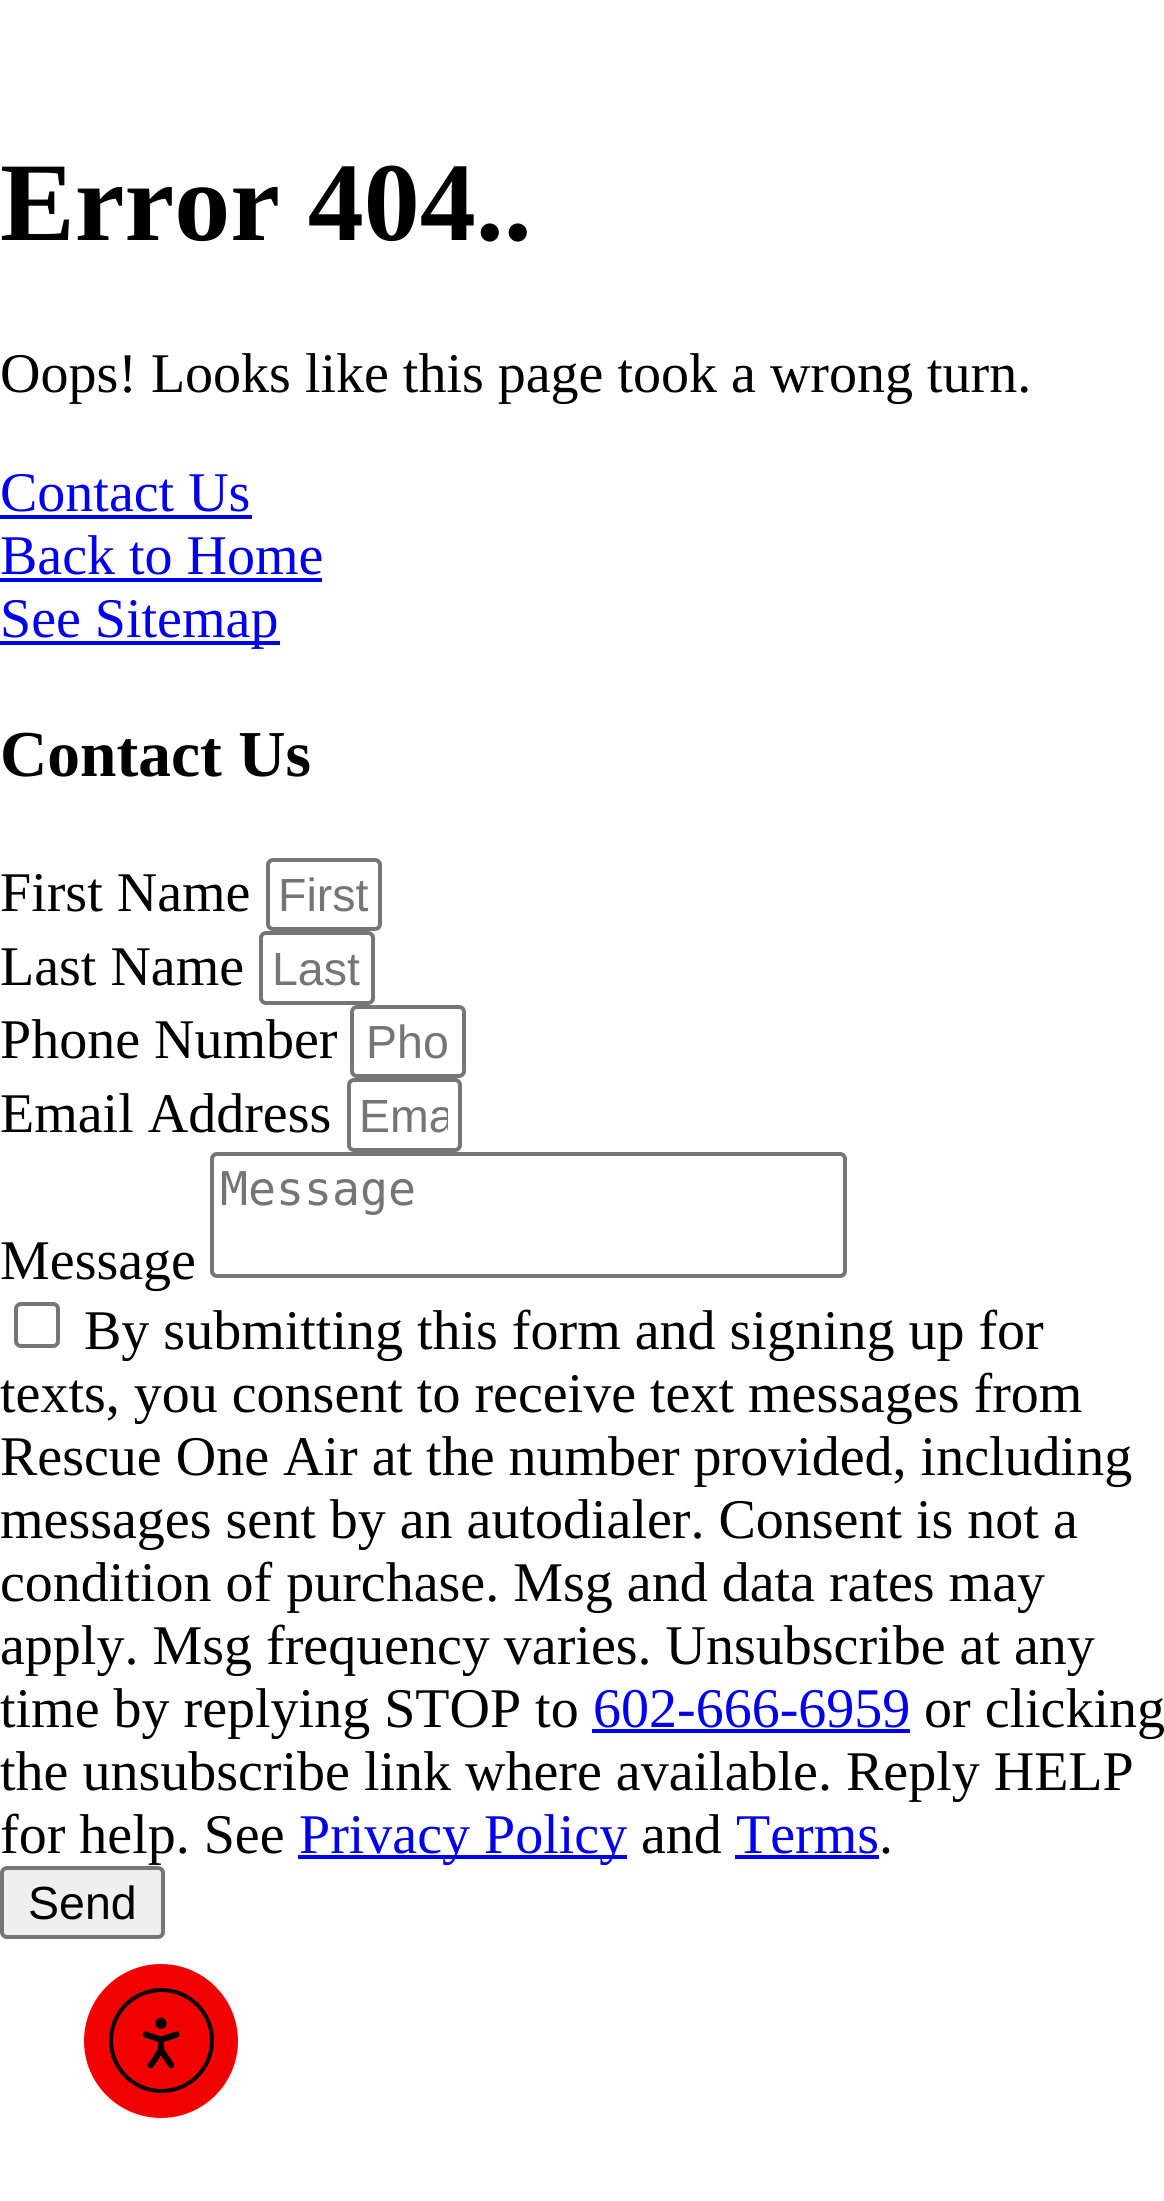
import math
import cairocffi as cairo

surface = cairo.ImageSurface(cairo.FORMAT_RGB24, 1164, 2201)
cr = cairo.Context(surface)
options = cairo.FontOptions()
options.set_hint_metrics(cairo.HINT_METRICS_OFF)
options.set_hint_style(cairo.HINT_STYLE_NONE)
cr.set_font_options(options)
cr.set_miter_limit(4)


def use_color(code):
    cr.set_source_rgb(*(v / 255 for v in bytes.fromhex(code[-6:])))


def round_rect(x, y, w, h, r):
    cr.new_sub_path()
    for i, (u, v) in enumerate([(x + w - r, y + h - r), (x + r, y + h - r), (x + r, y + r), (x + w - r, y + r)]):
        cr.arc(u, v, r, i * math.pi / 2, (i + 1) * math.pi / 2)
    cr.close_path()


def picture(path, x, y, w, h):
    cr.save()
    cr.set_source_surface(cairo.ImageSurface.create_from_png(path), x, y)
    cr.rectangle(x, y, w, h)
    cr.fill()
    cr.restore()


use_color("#ffffff")
cr.paint()
cr.select_font_face("Liberation Serif", cairo.FONT_SLANT_NORMAL, cairo.FONT_WEIGHT_BOLD)
cr.set_font_size(112)
use_color("#000000")
cr.move_to(0, 240)
cr.show_text("Error 404..")
cr.select_font_face("Liberation Serif")
cr.set_font_size(56)
cr.move_to(0, 392)
cr.show_text("Oops! Looks like this page took a wrong turn.")
use_color("#0000ee")
cr.move_to(0, 511)
cr.show_text("Contact Us")
cr.rectangle(0, 515, 252, 4)
cr.fill()
cr.move_to(0, 574)
cr.show_text("Back to Home")
cr.rectangle(0, 578, 322, 4)
cr.fill()
cr.rectangle(0, 641, 280, 4)
cr.fill()
cr.move_to(0, 637)
cr.show_text("See Sitemap")
cr.select_font_face("Liberation Serif", cairo.FONT_SLANT_NORMAL, cairo.FONT_WEIGHT_BOLD)
cr.set_font_size(65.5)
use_color("#000000")
cr.move_to(0, 776)
cr.show_text("Contact Us")
cr.select_font_face("Liberation Serif")
cr.set_font_size(56)
cr.move_to(0, 911)
cr.show_text("First Name")
round_rect(268, 860, 112, 69, 5)
use_color("#767676")
cr.set_line_width(4)
cr.stroke()
cr.save()
cr.rectangle(280, 868, 88, 53)
cr.clip()
cr.select_font_face("Liberation Sans")
cr.set_font_size(46.5)
use_color("#757575")
cr.move_to(278, 911)
cr.show_text("First")
cr.restore()
use_color("#000000")
cr.move_to(0, 985)
cr.show_text("Last Name")
round_rect(261, 933, 112, 70, 5)
use_color("#767676")
cr.stroke()
cr.select_font_face("Liberation Sans")
cr.set_font_size(46.5)
use_color("#757575")
cr.move_to(272, 985)
cr.show_text("Last")
cr.select_font_face("Liberation Serif")
cr.set_font_size(56)
use_color("#000000")
cr.move_to(0, 1058)
cr.show_text("Phone Number")
round_rect(352, 1007, 112, 69, 5)
use_color("#767676")
cr.stroke()
cr.select_font_face("Liberation Sans")
cr.set_font_size(46.5)
use_color("#757575")
cr.move_to(366, 1058)
cr.show_text("Pho")
cr.select_font_face("Liberation Serif")
cr.set_font_size(56)
use_color("#000000")
cr.move_to(0, 1132)
cr.show_text("Email Address")
round_rect(349, 1080, 111, 70, 5)
use_color("#767676")
cr.stroke()
cr.save()
cr.rectangle(361, 1089, 87, 52)
cr.clip()
cr.select_font_face("Liberation Sans")
cr.set_font_size(46.5)
use_color("#757575")
cr.move_to(359, 1132)
cr.show_text("Ema")
cr.restore()
round_rect(212, 1154, 633, 122, 5)
cr.stroke()
cr.select_font_face("DejaVu Sans Mono")
cr.set_font_size(46.5)
use_color("#757575")
cr.move_to(220, 1205)
cr.show_text("Message")
cr.select_font_face("Liberation Serif")
cr.set_font_size(56)
use_color("#000000")
cr.move_to(0, 1279)
cr.show_text("Message")
round_rect(16, 1304, 42, 42, 5)
use_color("#767676")
cr.stroke()
use_color("#000000")
cr.move_to(84, 1349)
cr.show_text("By submitting this form and signing up for")
cr.move_to(0, 1412)
cr.show_text("texts, you consent to receive text messages from")
cr.move_to(0, 1475)
cr.show_text("Rescue One Air at the number provided, including")
cr.move_to(0, 1538)
cr.show_text("messages sent by an autodialer. Consent is not a")
cr.move_to(0, 1601)
cr.show_text("condition of purchase. Msg and data rates may")
cr.move_to(0, 1664)
cr.show_text("apply. Msg frequency varies. Unsubscribe at any")
cr.move_to(0, 1727)
cr.show_text("time by replying STOP to")
use_color("#0000ee")
cr.move_to(593, 1727)
cr.show_text("602-666-6959")
cr.rectangle(592, 1729, 318, 4)
cr.fill()
use_color("#000000")
cr.move_to(924, 1727)
cr.show_text("or clicking")
cr.move_to(0, 1790)
cr.show_text("the unsubscribe link where available. Reply HELP")
cr.move_to(0, 1853)
cr.show_text("for help. See")
use_color("#0000ee")
cr.rectangle(298, 1855, 329, 4)
cr.fill()
cr.move_to(299, 1853)
cr.show_text("Privacy Policy")
use_color("#000000")
cr.move_to(641, 1853)
cr.show_text("and")
use_color("#0000ee")
cr.move_to(736, 1853)
cr.show_text("Terms")
use_color("#000000")
cr.move_to(879, 1853)
cr.show_text(".")
use_color("#0000ee")
cr.rectangle(735, 1855, 144, 4)
cr.fill()
use_color("#efefef")
round_rect(2, 1868, 161, 69, 5)
cr.fill_preserve()
use_color("#767676")
cr.stroke()
cr.select_font_face("Liberation Sans")
cr.set_font_size(46.5)
use_color("#000000")
cr.move_to(28, 1919)
cr.show_text("Send")
use_color("#f10100")
cr.new_path()
cr.arc(161, 2041, 77, 0, 2 * math.pi)
cr.fill()
cr.arc(161.5, 2040.5, 50.5, 0, 2 * math.pi)
use_color("#000000")
cr.stroke()
picture("img1.png", 142, 2017, 38, 52)
surface.write_to_png("result.png")
